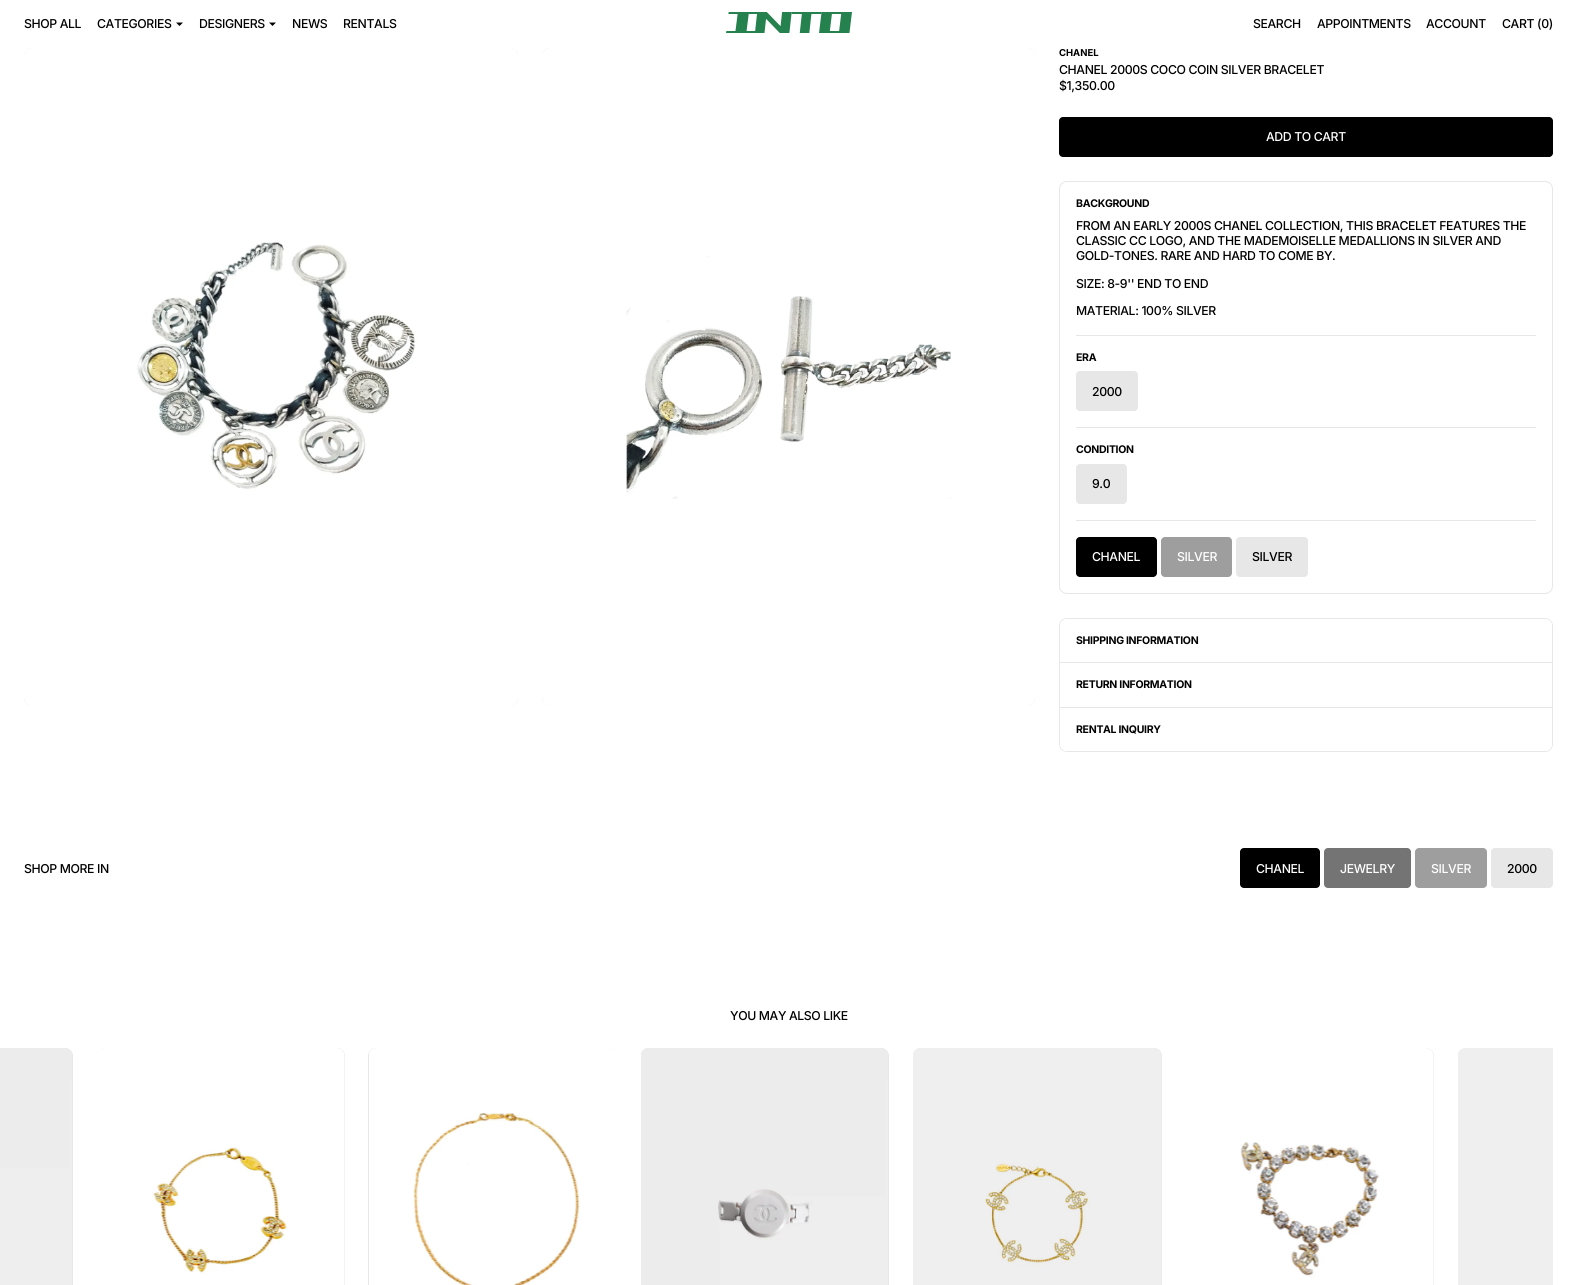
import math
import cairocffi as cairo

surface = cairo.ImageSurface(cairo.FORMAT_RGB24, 1577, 1285)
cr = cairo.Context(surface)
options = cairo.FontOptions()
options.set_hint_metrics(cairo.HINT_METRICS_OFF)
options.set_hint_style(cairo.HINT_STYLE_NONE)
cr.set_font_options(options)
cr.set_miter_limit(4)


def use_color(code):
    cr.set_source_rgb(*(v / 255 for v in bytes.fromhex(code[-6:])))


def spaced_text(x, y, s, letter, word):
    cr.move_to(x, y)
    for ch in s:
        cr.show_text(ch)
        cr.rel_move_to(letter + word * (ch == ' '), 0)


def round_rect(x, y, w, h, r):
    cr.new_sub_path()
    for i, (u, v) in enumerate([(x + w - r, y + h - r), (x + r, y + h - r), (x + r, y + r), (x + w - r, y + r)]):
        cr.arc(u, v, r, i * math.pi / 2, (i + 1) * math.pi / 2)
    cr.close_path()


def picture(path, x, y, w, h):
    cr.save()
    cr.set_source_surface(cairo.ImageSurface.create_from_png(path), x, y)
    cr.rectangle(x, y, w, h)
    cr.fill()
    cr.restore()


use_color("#ffffff")
cr.paint()
cr.select_font_face("Inter Medium")
cr.set_font_size(12.25)
use_color("#000000")
spaced_text(24, 28, "SHOP ALL", -0.37, 0)
spaced_text(97, 28, "CATEGORIES", -0.37, 0)
cr.set_fill_rule(cairo.FILL_RULE_EVEN_ODD)
cr.new_path()
cr.move_to(176, 22.5)
cr.line_to(179.5, 26)
cr.line_to(183, 22.5)
cr.close_path()
cr.fill()
spaced_text(199, 28, "DESIGNERS", -0.37, 0)
cr.new_path()
cr.move_to(269, 22.5)
cr.line_to(272.5, 26)
cr.line_to(276, 22.5)
cr.close_path()
cr.fill()
spaced_text(292, 28, "NEWS", -0.37, 0)
spaced_text(343, 28, "RENTALS", -0.37, 0)
picture("img1.png", 726, 12, 126, 21)
spaced_text(1253, 28, "SEARCH", -0.37, 0)
spaced_text(1317, 28, "APPOINTMENTS", -0.37, 0)
spaced_text(1426, 28, "ACCOUNT", -0.37, 0)
spaced_text(1502, 28, "CART (0)", -0.37, 0)
use_color("#e7e7e7")
round_rect(24, 48, 494, 658, 8)
cr.fill()
picture("img2.png", 24, 48, 494, 658)
round_rect(542, 48, 493, 658, 8)
cr.fill()
picture("img3.png", 542, 48, 493, 658)
cr.select_font_face("Inter", cairo.FONT_SLANT_NORMAL, cairo.FONT_WEIGHT_BOLD)
cr.set_font_size(9.5)
use_color("#000000")
cr.move_to(1059, 56)
cr.show_text("CHANEL")
cr.select_font_face("Inter Medium")
cr.set_font_size(12.25)
spaced_text(1059, 74, "CHANEL 2000S COCO COIN SILVER BRACELET", -0.37, 0)
spaced_text(1059, 90, "$1,350.00", -0.37, 0)
round_rect(1059, 117, 494, 40, 4)
cr.fill()
use_color("#ffffff")
spaced_text(1266, 141, "ADD TO CART", -0.37, 0)
round_rect(1059.5, 181.5, 493, 412, 7.5)
use_color("#e7e7e7")
cr.set_line_width(1)
cr.stroke()
cr.select_font_face("Inter", cairo.FONT_SLANT_NORMAL, cairo.FONT_WEIGHT_BOLD)
cr.set_font_size(10.5)
use_color("#000000")
spaced_text(1076, 207, "BACKGROUND", -0.3, 0)
cr.select_font_face("Inter Medium")
cr.set_font_size(12.25)
spaced_text(1076, 230, "FROM AN EARLY 2000S CHANEL COLLECTION, THIS BRACELET FEATURES THE", -0.37, 0)
spaced_text(1076, 245, "CLASSIC CC LOGO, AND THE MADEMOISELLE MEDALLIONS IN SILVER AND", -0.37, 0)
spaced_text(1076, 260, "GOLD-TONES. RARE AND HARD TO COME BY.", -0.37, 0)
spaced_text(1076, 288, "SIZE: 8-9'' END TO END", -0.37, 0)
spaced_text(1076, 315, "MATERIAL: 100% SILVER", -0.37, 0)
use_color("#e7e7e7")
cr.rectangle(1076, 335, 460, 1)
cr.fill()
cr.select_font_face("Inter", cairo.FONT_SLANT_NORMAL, cairo.FONT_WEIGHT_BOLD)
cr.set_font_size(10.5)
use_color("#000000")
spaced_text(1076, 361, "ERA", -0.3, 0)
use_color("#e7e7e7")
round_rect(1076, 371, 62, 40, 4)
cr.fill()
cr.select_font_face("Inter Medium")
cr.set_font_size(12.25)
use_color("#000000")
spaced_text(1092, 396, "2000", -0.37, 0)
use_color("#e7e7e7")
cr.rectangle(1076, 427, 460, 1)
cr.fill()
cr.select_font_face("Inter", cairo.FONT_SLANT_NORMAL, cairo.FONT_WEIGHT_BOLD)
cr.set_font_size(10.5)
use_color("#000000")
spaced_text(1076, 453, "CONDITION", -0.3, 0)
use_color("#e7e7e7")
round_rect(1076, 464, 51, 40, 4)
cr.fill()
cr.select_font_face("Inter Medium")
cr.set_font_size(12.25)
use_color("#000000")
spaced_text(1092, 488, "9.0", -0.37, 0)
use_color("#e7e7e7")
cr.rectangle(1076, 520, 460, 1)
cr.fill()
use_color("#000000")
round_rect(1076, 537, 81, 40, 4)
cr.fill()
use_color("#ffffff")
spaced_text(1092, 561, "CHANEL", -0.37, 0)
use_color("#9e9e9e")
round_rect(1161, 537, 71, 40, 4)
cr.fill()
use_color("#ffffff")
spaced_text(1177, 561, "SILVER", -0.37, 0)
use_color("#e7e7e7")
round_rect(1236, 537, 72, 40, 4)
cr.fill()
use_color("#000000")
spaced_text(1252, 561, "SILVER", -0.37, 0)
round_rect(1059.5, 618.5, 493, 133, 7.5)
use_color("#e7e7e7")
cr.stroke()
cr.rectangle(1060, 662, 492, 1)
cr.fill()
use_color("#ffffff")
cr.new_path()
cr.move_to(1067, 619)
cr.line_to(1545, 619)
cr.curve_to(1549, 619, 1552, 622, 1552, 626)
cr.line_to(1552, 662)
cr.line_to(1060, 662)
cr.line_to(1060, 626)
cr.curve_to(1060, 622, 1063, 619, 1067, 619)
cr.close_path()
cr.fill()
cr.select_font_face("Inter", cairo.FONT_SLANT_NORMAL, cairo.FONT_WEIGHT_BOLD)
cr.set_font_size(10.5)
use_color("#000000")
spaced_text(1076, 644, "SHIPPING INFORMATION", -0.3, 0)
use_color("#e7e7e7")
cr.rectangle(1060, 707, 492, 1)
cr.fill()
use_color("#000000")
spaced_text(1076, 688, "RETURN INFORMATION", -0.3, 0)
use_color("#ffffff")
cr.new_path()
cr.move_to(1060, 708)
cr.line_to(1552, 708)
cr.line_to(1552, 744)
cr.curve_to(1552, 748, 1549, 751, 1545, 751)
cr.line_to(1067, 751)
cr.curve_to(1063, 751, 1060, 748, 1060, 744)
cr.close_path()
cr.fill()
use_color("#000000")
spaced_text(1076, 733, "RENTAL INQUIRY", -0.3, 0)
cr.select_font_face("Inter Medium")
cr.set_font_size(12.25)
spaced_text(24, 873, "SHOP MORE IN", -0.37, 0)
round_rect(1240, 848, 80, 40, 4)
cr.fill()
use_color("#ffffff")
spaced_text(1256, 873, "CHANEL", -0.37, 0)
use_color("#747474")
round_rect(1324, 848, 87, 40, 4)
cr.fill()
use_color("#ffffff")
spaced_text(1340, 873, "JEWELRY", -0.37, 0)
use_color("#9e9e9e")
round_rect(1415, 848, 72, 40, 4)
cr.fill()
use_color("#ffffff")
spaced_text(1431, 873, "SILVER", -0.37, 0)
use_color("#e7e7e7")
round_rect(1491, 848, 62, 40, 4)
cr.fill()
use_color("#000000")
spaced_text(1507, 873, "2000", -0.37, 0)
spaced_text(730, 1020, "YOU MAY ALSO LIKE", -0.37, 0)
use_color("#e7e7e7")
cr.new_path()
cr.move_to(-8, 1048)
cr.line_to(65, 1048)
cr.curve_to(69.5, 1048, 73, 1051.5, 73, 1056)
cr.line_to(73, 1285)
cr.curve_to(73, 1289.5, 69.5, 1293, 65, 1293)
cr.line_to(-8, 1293)
cr.close_path()
cr.fill()
picture("img4.png", 0, 1048, 72, 237)
round_rect(97, 1048, 248, 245, 8)
cr.fill()
picture("img5.png", 97, 1048, 248, 237)
round_rect(368, 1048, 249, 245, 8)
cr.fill()
picture("img6.png", 369, 1048, 248, 237)
round_rect(641, 1048, 248, 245, 8)
cr.fill()
picture("img7.png", 641, 1048, 247, 237)
round_rect(913, 1048, 249, 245, 8)
cr.fill()
picture("img8.png", 913, 1048, 249, 237)
round_rect(1186, 1048, 248, 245, 8)
cr.fill()
picture("img9.png", 1186, 1048, 248, 237)
picture("img10.png", 1458, 1048, 95, 237)
surface.write_to_png("result.png")
